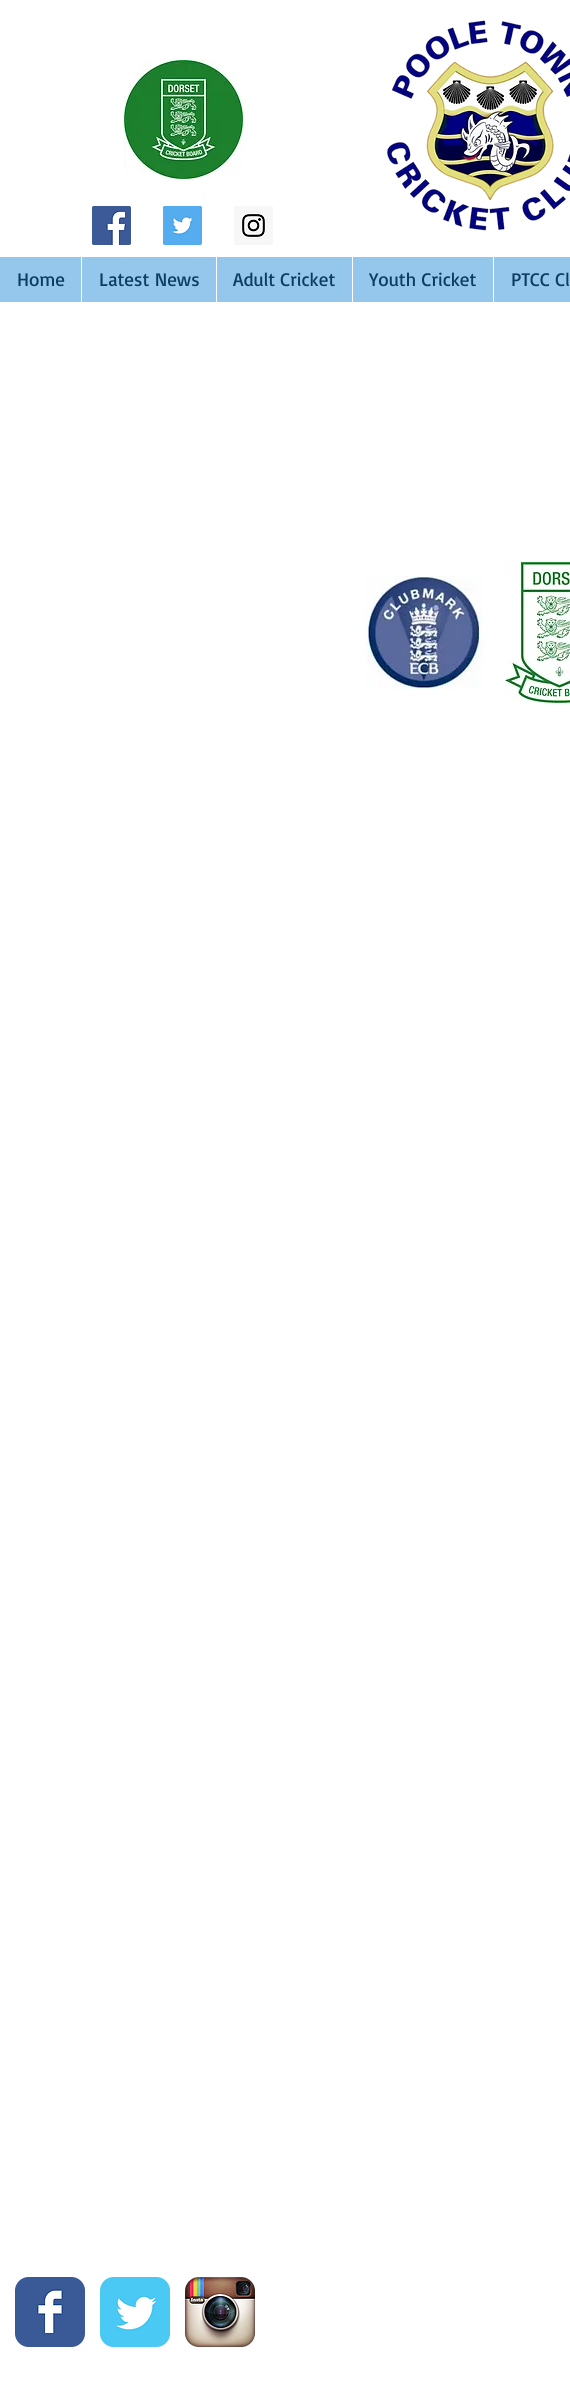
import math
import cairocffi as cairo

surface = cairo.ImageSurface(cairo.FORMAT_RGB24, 570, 2408)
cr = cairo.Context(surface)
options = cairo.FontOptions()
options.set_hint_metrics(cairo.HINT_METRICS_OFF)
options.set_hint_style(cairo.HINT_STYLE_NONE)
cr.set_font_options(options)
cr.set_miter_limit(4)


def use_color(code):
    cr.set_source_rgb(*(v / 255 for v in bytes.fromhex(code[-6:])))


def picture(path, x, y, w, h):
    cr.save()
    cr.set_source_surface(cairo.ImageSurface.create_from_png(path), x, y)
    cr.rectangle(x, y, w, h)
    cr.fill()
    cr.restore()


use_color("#ffffff")
cr.paint()
picture("img1.png", 124, 60, 119, 119)
picture("img2.png", 387, 20, 183, 211)
picture("img3.png", 92, 206, 39, 39)
picture("img4.png", 163, 206, 39, 39)
picture("img5.png", 234, 206, 39, 39)
use_color("#95c6ec")
cr.rectangle(0, 257, 570, 45)
cr.fill()
cr.select_font_face("Basic")
cr.set_font_size(19)
use_color("#0c3c60")
cr.move_to(17, 286)
cr.show_text("Home")
use_color("#ffffff")
cr.rectangle(81, 257, 1, 45)
cr.fill()
use_color("#0c3c60")
cr.move_to(99, 286)
cr.show_text("Latest News")
use_color("#ffffff")
cr.rectangle(216, 257, 1, 45)
cr.fill()
use_color("#0c3c60")
cr.move_to(233, 286)
cr.show_text("Adult Cricket")
use_color("#ffffff")
cr.rectangle(352, 257, 1, 45)
cr.fill()
use_color("#0c3c60")
cr.move_to(369, 286)
cr.show_text("Youth Cricket")
use_color("#ffffff")
cr.rectangle(493, 257, 1, 45)
cr.fill()
use_color("#0c3c60")
cr.move_to(511, 286)
cr.show_text("PTCC Cl")
picture("img6.png", 365, 576, 118, 113)
picture("img7.png", 505, 562, 65, 141)
picture("img8.png", 15, 2277, 70, 70)
picture("img9.png", 100, 2277, 70, 70)
picture("img10.png", 185, 2277, 70, 70)
surface.write_to_png("result.png")
